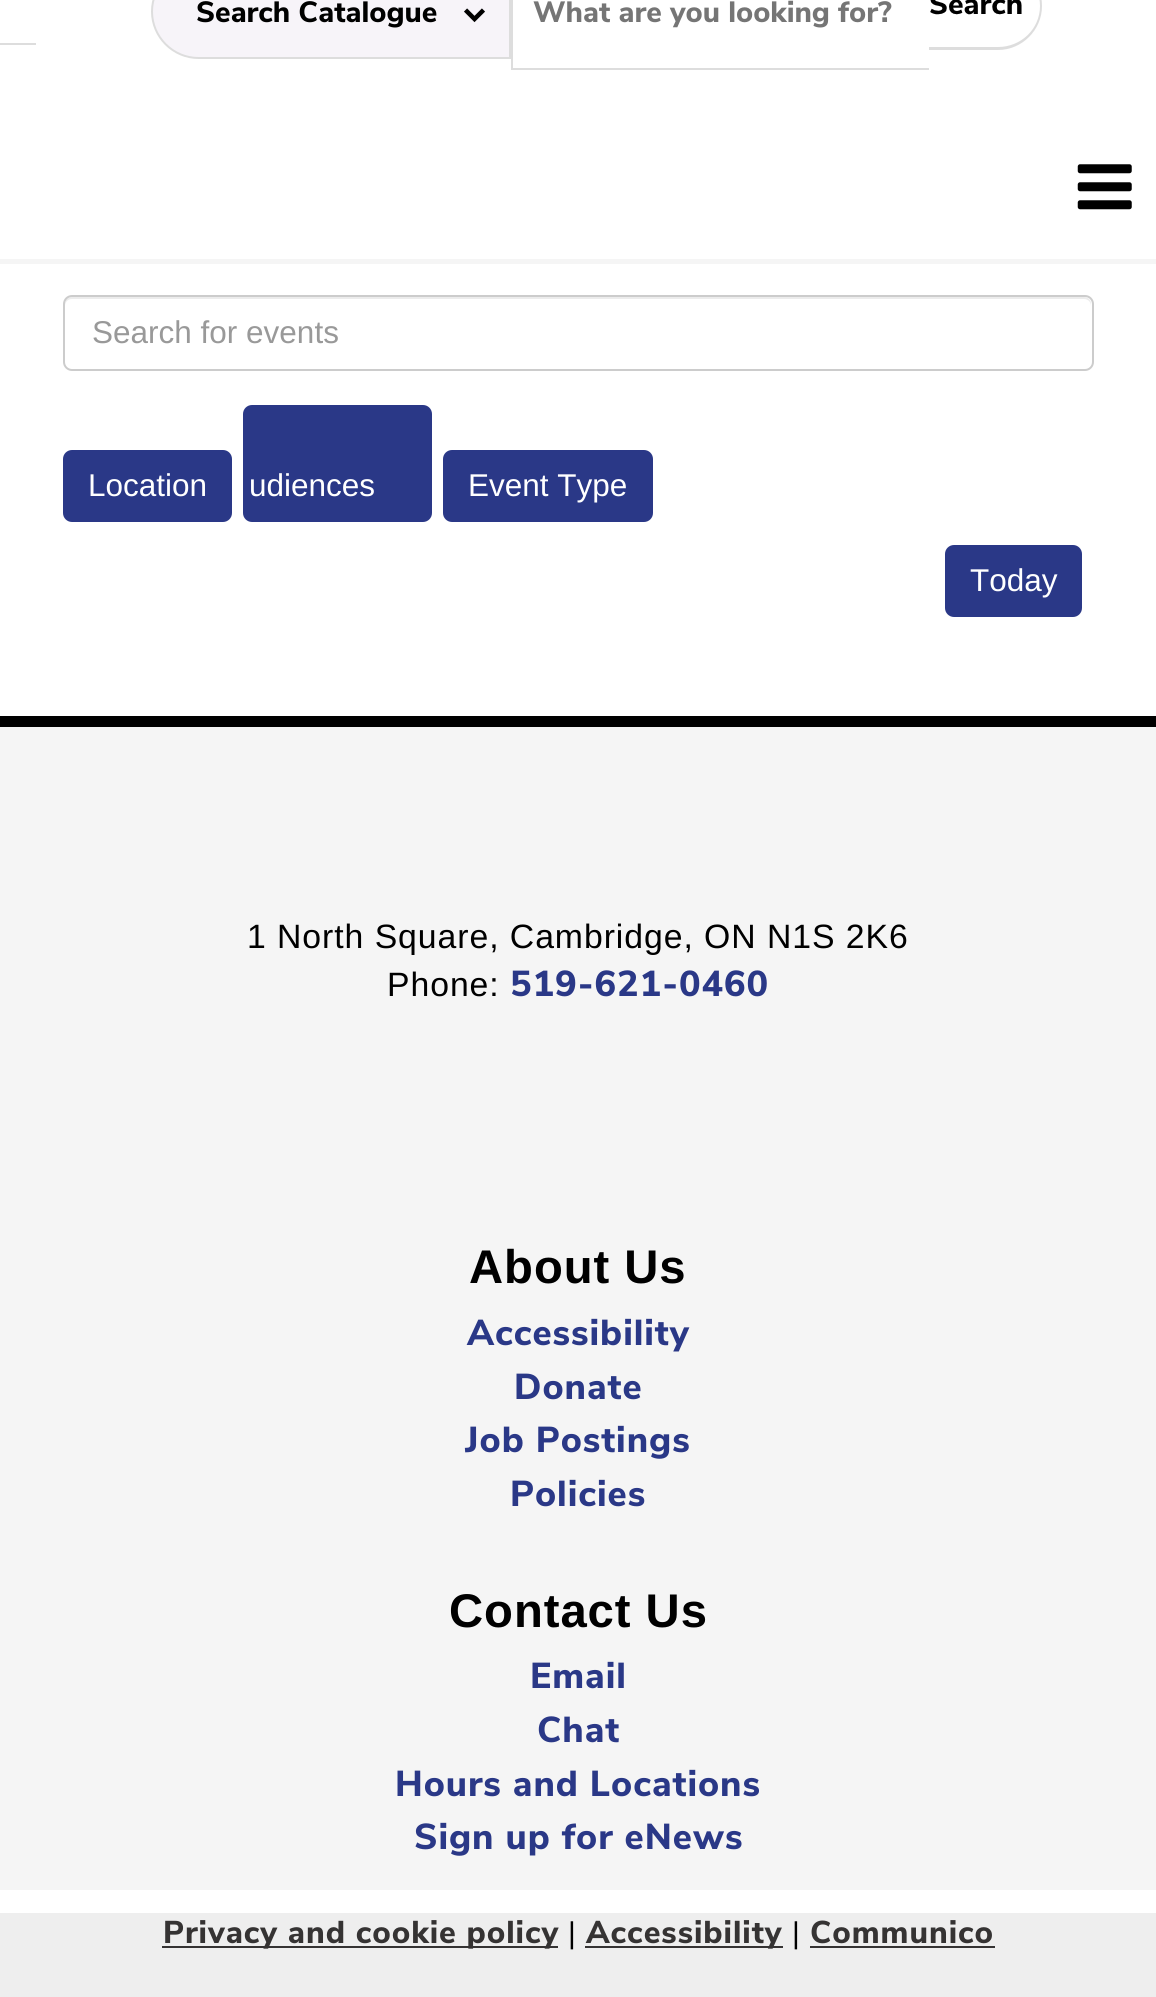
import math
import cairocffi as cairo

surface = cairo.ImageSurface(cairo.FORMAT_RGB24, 1156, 1997)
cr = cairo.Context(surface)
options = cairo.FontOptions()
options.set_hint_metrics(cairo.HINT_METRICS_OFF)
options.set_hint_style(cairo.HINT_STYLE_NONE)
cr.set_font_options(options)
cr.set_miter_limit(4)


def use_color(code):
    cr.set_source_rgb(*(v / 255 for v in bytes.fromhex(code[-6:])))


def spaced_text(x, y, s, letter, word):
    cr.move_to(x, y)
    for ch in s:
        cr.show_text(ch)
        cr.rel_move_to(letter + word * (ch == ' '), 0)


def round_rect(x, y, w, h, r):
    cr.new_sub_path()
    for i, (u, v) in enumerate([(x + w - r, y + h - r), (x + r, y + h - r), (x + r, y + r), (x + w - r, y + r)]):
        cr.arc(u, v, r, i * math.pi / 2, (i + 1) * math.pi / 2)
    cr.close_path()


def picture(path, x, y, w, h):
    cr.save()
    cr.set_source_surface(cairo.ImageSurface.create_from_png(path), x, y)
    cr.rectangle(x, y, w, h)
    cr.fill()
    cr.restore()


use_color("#ffffff")
cr.paint()
use_color("#f7f4f9")
cr.new_path()
cr.move_to(198.5, -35)
cr.line_to(510, -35)
cr.line_to(510, 58)
cr.line_to(198.5, 58)
cr.curve_to(173, 58, 152, 37, 152, 11.5)
cr.curve_to(152, -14, 173, -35, 198.5, -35)
cr.close_path()
cr.fill_preserve()
use_color("#dddddd")
cr.stroke()
cr.new_path()
cr.move_to(465.5, 10)
cr.line_to(474.5, 19)
cr.line_to(483.5, 10)
use_color("#000000")
cr.set_line_width(4.5)
cr.stroke()
cr.select_font_face("Nunito Sans ExtraBold")
cr.set_font_size(29.25)
cr.move_to(196, 22)
cr.show_text("Search Catalogue")
use_color("#dddddd")
cr.rectangle(511, 68, 418, 2)
cr.fill()
cr.rectangle(511, 0, 2, 70)
cr.fill()
cr.rectangle(0, 43, 36, 2)
cr.fill()
cr.set_fill_rule(cairo.FILL_RULE_EVEN_ODD)
cr.new_path()
cr.move_to(929, -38)
cr.line_to(998, -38)
cr.curve_to(1022, -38, 1042, -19, 1042, 6)
cr.curve_to(1042, 30, 1022, 50, 998, 50)
cr.line_to(929, 50)
cr.close_path()
cr.move_to(929, -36)
cr.line_to(998, -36)
cr.curve_to(1021, -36, 1040, -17, 1040, 6)
cr.curve_to(1040, 29, 1021, 47, 998, 47)
cr.line_to(929, 47)
cr.close_path()
cr.fill()
use_color("#757575")
cr.move_to(533, 22)
cr.show_text("What are you looking for?")
picture("img1.png", 930, 0, 92, 15)
use_color("#f5f5f5")
cr.rectangle(0, 259, 1156, 5)
cr.fill()
picture("img2.png", 1077, 164, 55, 46)
use_color("#ececec")
cr.set_fill_rule(cairo.FILL_RULE_WINDING)
cr.new_path()
cr.move_to(72, 299)
cr.line_to(1084, 299)
cr.curve_to(1088, 299, 1091, 302, 1091, 306)
cr.line_to(1091, 304)
cr.curve_to(1091, 300, 1088, 297, 1084, 297)
cr.line_to(72, 297)
cr.curve_to(68, 297, 65, 300, 65, 304)
cr.line_to(65, 306)
cr.curve_to(65, 302, 68, 299, 72, 299)
cr.close_path()
cr.fill()
round_rect(64, 296, 1029, 74, 8)
use_color("#cccccc")
cr.set_line_width(2)
cr.stroke()
cr.select_font_face("Liberation Sans")
cr.set_font_size(31.5)
use_color("#999999")
cr.move_to(92, 343)
cr.show_text("Search for events")
use_color("#2a3887")
round_rect(64, 451, 167, 70, 8)
cr.fill_preserve()
cr.stroke()
use_color("#ffffff")
cr.move_to(88, 496)
cr.show_text("Location")
use_color("#2a3887")
round_rect(244, 406, 187, 115, 8)
cr.fill_preserve()
cr.stroke()
use_color("#ffffff")
cr.move_to(249, 496)
cr.show_text("udiences")
use_color("#2a3887")
round_rect(444, 451, 208, 70, 8)
cr.fill_preserve()
cr.stroke()
use_color("#ffffff")
cr.move_to(468, 496)
cr.show_text("Event Type")
use_color("#2a3887")
round_rect(946, 546, 135, 70, 8)
cr.fill_preserve()
cr.stroke()
use_color("#ffffff")
cr.move_to(970, 591)
cr.show_text("Today")
use_color("#f5f5f5")
cr.rectangle(0, 727, 1156, 1163)
cr.fill()
use_color("#000000")
cr.rectangle(0, 716, 1156, 11)
cr.fill()
cr.set_font_size(33.75)
spaced_text(247, 948, "1 North Square, Cambridge, ON N1S 2K6", 0.95, 0)
spaced_text(387, 996, "Phone:", 0.95, 0)
cr.select_font_face("Nunito Sans ExtraBold")
cr.set_font_size(36)
use_color("#2a3887")
spaced_text(510, 996, "519-621-0460", 0.95, 0)
cr.select_font_face("Liberation Sans", cairo.FONT_SLANT_NORMAL, cairo.FONT_WEIGHT_BOLD)
cr.set_font_size(47.25)
use_color("#000000")
spaced_text(469, 1283, "About Us", 0.95, 0)
cr.select_font_face("Nunito Sans ExtraBold")
cr.set_font_size(36)
use_color("#2a3887")
spaced_text(467, 1345, "Accessibility", 0.95, 0)
spaced_text(514, 1399, "Donate", 0.95, 0)
spaced_text(465, 1452, "Job Postings", 0.95, 0)
spaced_text(510, 1506, "Policies", 0.95, 0)
cr.select_font_face("Liberation Sans", cairo.FONT_SLANT_NORMAL, cairo.FONT_WEIGHT_BOLD)
cr.set_font_size(47.25)
use_color("#000000")
spaced_text(449, 1627, "Contact Us", 0.95, 0)
cr.select_font_face("Nunito Sans ExtraBold")
cr.set_font_size(36)
use_color("#2a3887")
spaced_text(530, 1688, "Email", 0.95, 0)
spaced_text(537, 1742, "Chat", 0.95, 0)
spaced_text(395, 1796, "Hours and Locations", 0.95, 0)
spaced_text(414, 1849, "Sign up for eNews", 0.95, 0)
use_color("#eeeeee")
cr.rectangle(0, 1913, 1156, 84)
cr.fill()
use_color("#353333")
cr.rectangle(162, 1946, 396, 2)
cr.fill()
cr.set_font_size(31.5)
spaced_text(163, 1943, "Privacy and cookie policy", 0.95, 0)
cr.select_font_face("Liberation Sans")
cr.set_font_size(30)
use_color("#000000")
spaced_text(568, 1943, "|", 0.95, 0)
use_color("#353333")
cr.rectangle(585, 1946, 198, 2)
cr.fill()
cr.select_font_face("Nunito Sans ExtraBold")
cr.set_font_size(31.5)
spaced_text(586, 1943, "Accessibility", 0.95, 0)
cr.select_font_face("Liberation Sans")
cr.set_font_size(30)
use_color("#000000")
spaced_text(792, 1943, "|", 0.95, 0)
cr.select_font_face("Nunito Sans ExtraBold")
cr.set_font_size(31.5)
use_color("#353333")
spaced_text(810, 1943, "Communico", 0.95, 0)
cr.rectangle(810, 1946, 185, 2)
cr.fill()
surface.write_to_png("result.png")
